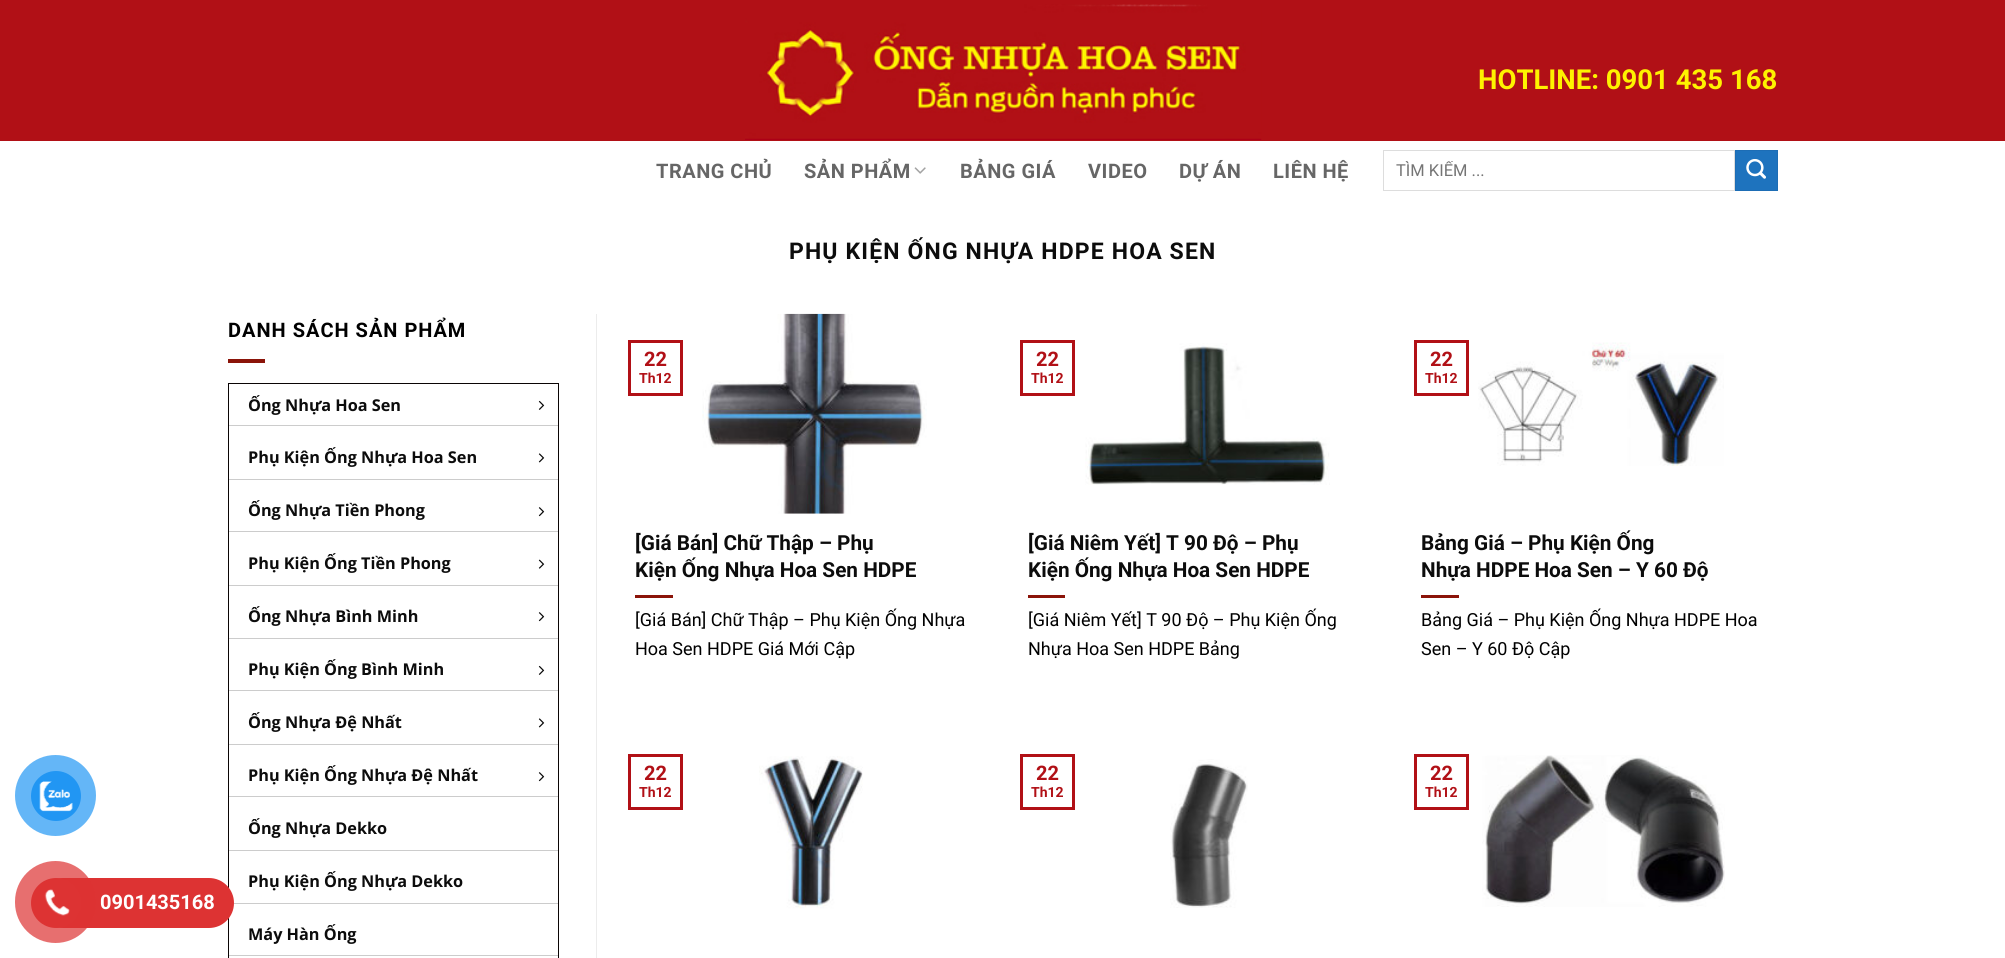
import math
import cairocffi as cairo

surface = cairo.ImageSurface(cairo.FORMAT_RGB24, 2005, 958)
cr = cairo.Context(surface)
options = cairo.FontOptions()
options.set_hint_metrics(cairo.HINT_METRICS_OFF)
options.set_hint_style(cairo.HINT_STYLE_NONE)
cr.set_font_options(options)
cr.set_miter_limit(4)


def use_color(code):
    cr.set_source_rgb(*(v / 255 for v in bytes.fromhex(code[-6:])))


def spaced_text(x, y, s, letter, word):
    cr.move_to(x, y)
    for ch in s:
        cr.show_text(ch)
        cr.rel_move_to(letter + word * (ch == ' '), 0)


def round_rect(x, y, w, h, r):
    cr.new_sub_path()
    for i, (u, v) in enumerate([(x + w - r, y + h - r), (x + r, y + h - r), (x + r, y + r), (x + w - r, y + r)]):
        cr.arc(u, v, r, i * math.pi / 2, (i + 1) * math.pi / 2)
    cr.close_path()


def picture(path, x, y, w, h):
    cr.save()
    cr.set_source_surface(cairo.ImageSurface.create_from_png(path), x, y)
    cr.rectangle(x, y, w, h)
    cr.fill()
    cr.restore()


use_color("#ffffff")
cr.paint()
use_color("#64b6f7")
cr.arc(55.5, 795.5, 40.5, 0, 2 * math.pi)
cr.fill()
use_color("#2196f3")
cr.arc(56, 796, 25, 0, 2 * math.pi)
cr.fill()
picture("img1.png", 39, 781, 34, 31)
cr.rectangle(228.5, 383.5, 330, 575)
use_color("#0a0404")
cr.set_line_width(1)
cr.stroke()
use_color("#cccccc")
cr.rectangle(229, 903, 329, 1)
cr.fill()
use_color("#dd3333")
round_rect(38, 878, 196, 50, 25)
cr.fill()
cr.set_source_rgba(0.867, 0.2, 0.2, 0.7)
round_rect(15, 861, 81, 82, 40.5)
cr.fill()
use_color("#dd3333")
cr.arc(56, 903, 25, 0, 2 * math.pi)
cr.fill()
picture("img2.png", 44, 889, 26, 27)
cr.select_font_face("Roboto", cairo.FONT_SLANT_NORMAL, cairo.FONT_WEIGHT_BOLD)
cr.set_font_size(20)
use_color("#ffffff")
cr.move_to(100, 909)
cr.show_text("0901435168")
use_color("#b11016")
cr.rectangle(0, 0, 2005, 141)
cr.fill()
picture("img3.png", 745, 4, 517, 136)
cr.set_font_size(27.5)
use_color("#fef200")
cr.move_to(1478, 89)
cr.show_text("HOTLINE: 0901 435 168")
cr.set_font_size(20)
use_color("#666666")
spaced_text(656, 178, "TRANG CHỦ", 0.5, 0)
spaced_text(804, 178, "SẢN PHẨM", 0.5, 0)
picture("img4.png", 914, 167, 12, 7)
spaced_text(960, 178, "BẢNG GIÁ", 0.5, 0)
spaced_text(1088, 178, "VIDEO", 0.5, 0)
spaced_text(1179, 178, "DỰ ÁN", 0.5, 0)
spaced_text(1273, 178, "LIÊN HỆ", 0.5, 0)
cr.rectangle(1383.5, 150.5, 351, 40)
use_color("#dddddd")
cr.stroke()
cr.save()
cr.rectangle(1396, 161, 320, 19)
cr.clip()
cr.select_font_face("Roboto")
cr.set_font_size(16.5)
use_color("#757575")
cr.move_to(1396, 176)
cr.show_text("TÌM KIẾM ...")
cr.restore()
use_color("#1e73be")
cr.rectangle(1735.5, 150.5, 42, 40)
cr.fill_preserve()
use_color("#1d6db5")
cr.stroke()
picture("img5.png", 1746, 159, 20, 20)
cr.set_font_size(23)
use_color("#0c0c0c")
spaced_text(789, 259, "PHỤ KIỆN ỐNG NHỰA HDPE HOA SEN", 1.15, 0)
cr.set_font_size(20)
use_color("#000000")
spaced_text(228, 337, "DANH SÁCH SẢN PHẨM", 1, 0)
use_color("#8b1409")
cr.rectangle(228, 359, 37, 4)
cr.fill()
use_color("#cccccc")
cr.rectangle(229, 425, 329, 1)
cr.fill()
cr.select_font_face("Open Sans", cairo.FONT_SLANT_NORMAL, cairo.FONT_WEIGHT_BOLD)
cr.set_font_size(16.25)
use_color("#0c0c0c")
cr.move_to(248, 411)
cr.show_text("Ống Nhựa Hoa Sen")
picture("img6.png", 538, 400, 7, 10)
use_color("#cccccc")
cr.rectangle(229, 479, 329, 1)
cr.fill()
use_color("#0c0c0c")
cr.move_to(248, 463)
cr.show_text("Phụ Kiện Ống Nhựa Hoa Sen")
picture("img7.png", 538, 453, 7, 10)
use_color("#cccccc")
cr.rectangle(229, 531, 329, 1)
cr.fill()
use_color("#0c0c0c")
cr.move_to(248, 516)
cr.show_text("Ống Nhựa Tiền Phong")
picture("img8.png", 538, 507, 7, 10)
use_color("#cccccc")
cr.rectangle(229, 585, 329, 1)
cr.fill()
use_color("#0c0c0c")
cr.move_to(248, 569)
cr.show_text("Phụ Kiện Ống Tiền Phong")
picture("img9.png", 538, 559, 7, 10)
use_color("#cccccc")
cr.rectangle(229, 638, 329, 1)
cr.fill()
use_color("#0c0c0c")
cr.move_to(248, 622)
cr.show_text("Ống Nhựa Bình Minh")
picture("img8.png", 538, 612, 7, 10)
use_color("#cccccc")
cr.rectangle(229, 690, 329, 1)
cr.fill()
use_color("#0c0c0c")
cr.move_to(248, 675)
cr.show_text("Phụ Kiện Ống Bình Minh")
picture("img6.png", 538, 665, 7, 10)
use_color("#cccccc")
cr.rectangle(229, 744, 329, 1)
cr.fill()
use_color("#0c0c0c")
cr.move_to(248, 728)
cr.show_text("Ống Nhựa Đệ Nhất")
picture("img7.png", 538, 718, 7, 10)
use_color("#cccccc")
cr.rectangle(229, 796, 329, 1)
cr.fill()
use_color("#0c0c0c")
cr.move_to(248, 781)
cr.show_text("Phụ Kiện Ống Nhựa Đệ Nhất")
picture("img8.png", 538, 772, 7, 10)
use_color("#cccccc")
cr.rectangle(229, 850, 329, 1)
cr.fill()
use_color("#0c0c0c")
cr.move_to(248, 834)
cr.show_text("Ống Nhựa Dekko")
cr.move_to(248, 887)
cr.show_text("Phụ Kiện Ống Nhựa Dekko")
use_color("#cccccc")
cr.rectangle(229, 955, 329, 1)
cr.fill()
use_color("#0c0c0c")
cr.move_to(248, 940)
cr.show_text("Máy Hàn Ống")
use_color("#ececec")
cr.rectangle(596, 314, 1, 644)
cr.fill()
cr.rectangle(629.5, 341.5, 52, 53)
use_color("#b11016")
cr.set_line_width(3)
cr.stroke()
cr.select_font_face("Roboto", cairo.FONT_SLANT_NORMAL, cairo.FONT_WEIGHT_BOLD)
cr.set_font_size(20)
cr.move_to(644, 366)
cr.show_text("22")
cr.set_font_size(14)
cr.move_to(639, 383)
cr.show_text("Th12")
picture("img10.png", 702, 313, 225, 201)
cr.set_font_size(20.75)
use_color("#0c0c0c")
cr.move_to(635, 550)
cr.show_text("[Giá Bán] Chữ Thập – Phụ")
cr.move_to(635, 577)
cr.show_text("Kiện Ống Nhựa Hoa Sen HDPE")
use_color("#8b1409")
cr.rectangle(635, 595, 38, 3)
cr.fill()
cr.select_font_face("Roboto")
cr.set_font_size(18)
use_color("#000000")
cr.move_to(635, 626)
cr.show_text("[Giá Bán] Chữ Thập – Phụ Kiện Ống Nhựa")
cr.move_to(635, 655)
cr.show_text("Hoa Sen HDPE Giá Mới Cập")
cr.rectangle(1021.5, 341.5, 52, 53)
use_color("#b11016")
cr.stroke()
cr.select_font_face("Roboto", cairo.FONT_SLANT_NORMAL, cairo.FONT_WEIGHT_BOLD)
cr.set_font_size(20)
cr.move_to(1036, 366)
cr.show_text("22")
cr.set_font_size(14)
cr.move_to(1031, 383)
cr.show_text("Th12")
picture("img11.png", 1085, 343, 245, 142)
cr.set_font_size(20.75)
use_color("#0c0c0c")
cr.move_to(1028, 550)
cr.show_text("[Giá Niêm Yết] T 90 Độ – Phụ")
cr.move_to(1028, 577)
cr.show_text("Kiện Ống Nhựa Hoa Sen HDPE")
use_color("#8b1409")
cr.rectangle(1028, 595, 37, 3)
cr.fill()
cr.select_font_face("Roboto")
cr.set_font_size(18)
use_color("#000000")
cr.move_to(1028, 626)
cr.show_text("[Giá Niêm Yết] T 90 Độ – Phụ Kiện Ống")
cr.move_to(1028, 655)
cr.show_text("Nhựa Hoa Sen HDPE Bảng")
cr.rectangle(1415.5, 341.5, 52, 53)
use_color("#b11016")
cr.stroke()
cr.select_font_face("Roboto", cairo.FONT_SLANT_NORMAL, cairo.FONT_WEIGHT_BOLD)
cr.set_font_size(20)
cr.move_to(1430, 366)
cr.show_text("22")
cr.set_font_size(14)
cr.move_to(1425, 383)
cr.show_text("Th12")
picture("img12.png", 1478, 342, 246, 124)
cr.set_font_size(20.75)
use_color("#0c0c0c")
cr.move_to(1421, 550)
cr.show_text("Bảng Giá – Phụ Kiện Ống")
cr.move_to(1421, 577)
cr.show_text("Nhựa HDPE Hoa Sen – Y 60 Độ")
use_color("#8b1409")
cr.rectangle(1421, 595, 38, 3)
cr.fill()
cr.select_font_face("Roboto")
cr.set_font_size(18)
use_color("#000000")
cr.move_to(1421, 626)
cr.show_text("Bảng Giá – Phụ Kiện Ống Nhựa HDPE Hoa")
cr.move_to(1421, 655)
cr.show_text("Sen – Y 60 Độ Cập")
cr.rectangle(629.5, 755.5, 52, 53)
use_color("#b11016")
cr.stroke()
cr.select_font_face("Roboto", cairo.FONT_SLANT_NORMAL, cairo.FONT_WEIGHT_BOLD)
cr.set_font_size(20)
cr.move_to(644, 780)
cr.show_text("22")
cr.set_font_size(14)
cr.move_to(639, 797)
cr.show_text("Th12")
picture("img13.png", 759, 756, 104, 153)
cr.rectangle(1021.5, 755.5, 52, 53)
cr.stroke()
cr.set_font_size(20)
cr.move_to(1036, 780)
cr.show_text("22")
cr.set_font_size(14)
cr.move_to(1031, 797)
cr.show_text("Th12")
picture("img14.png", 1170, 759, 78, 149)
cr.rectangle(1415.5, 755.5, 52, 53)
cr.stroke()
cr.set_font_size(20)
cr.move_to(1430, 780)
cr.show_text("22")
cr.set_font_size(14)
cr.move_to(1425, 797)
cr.show_text("Th12")
picture("img15.png", 1482, 755, 243, 152)
surface.write_to_png("result.png")
